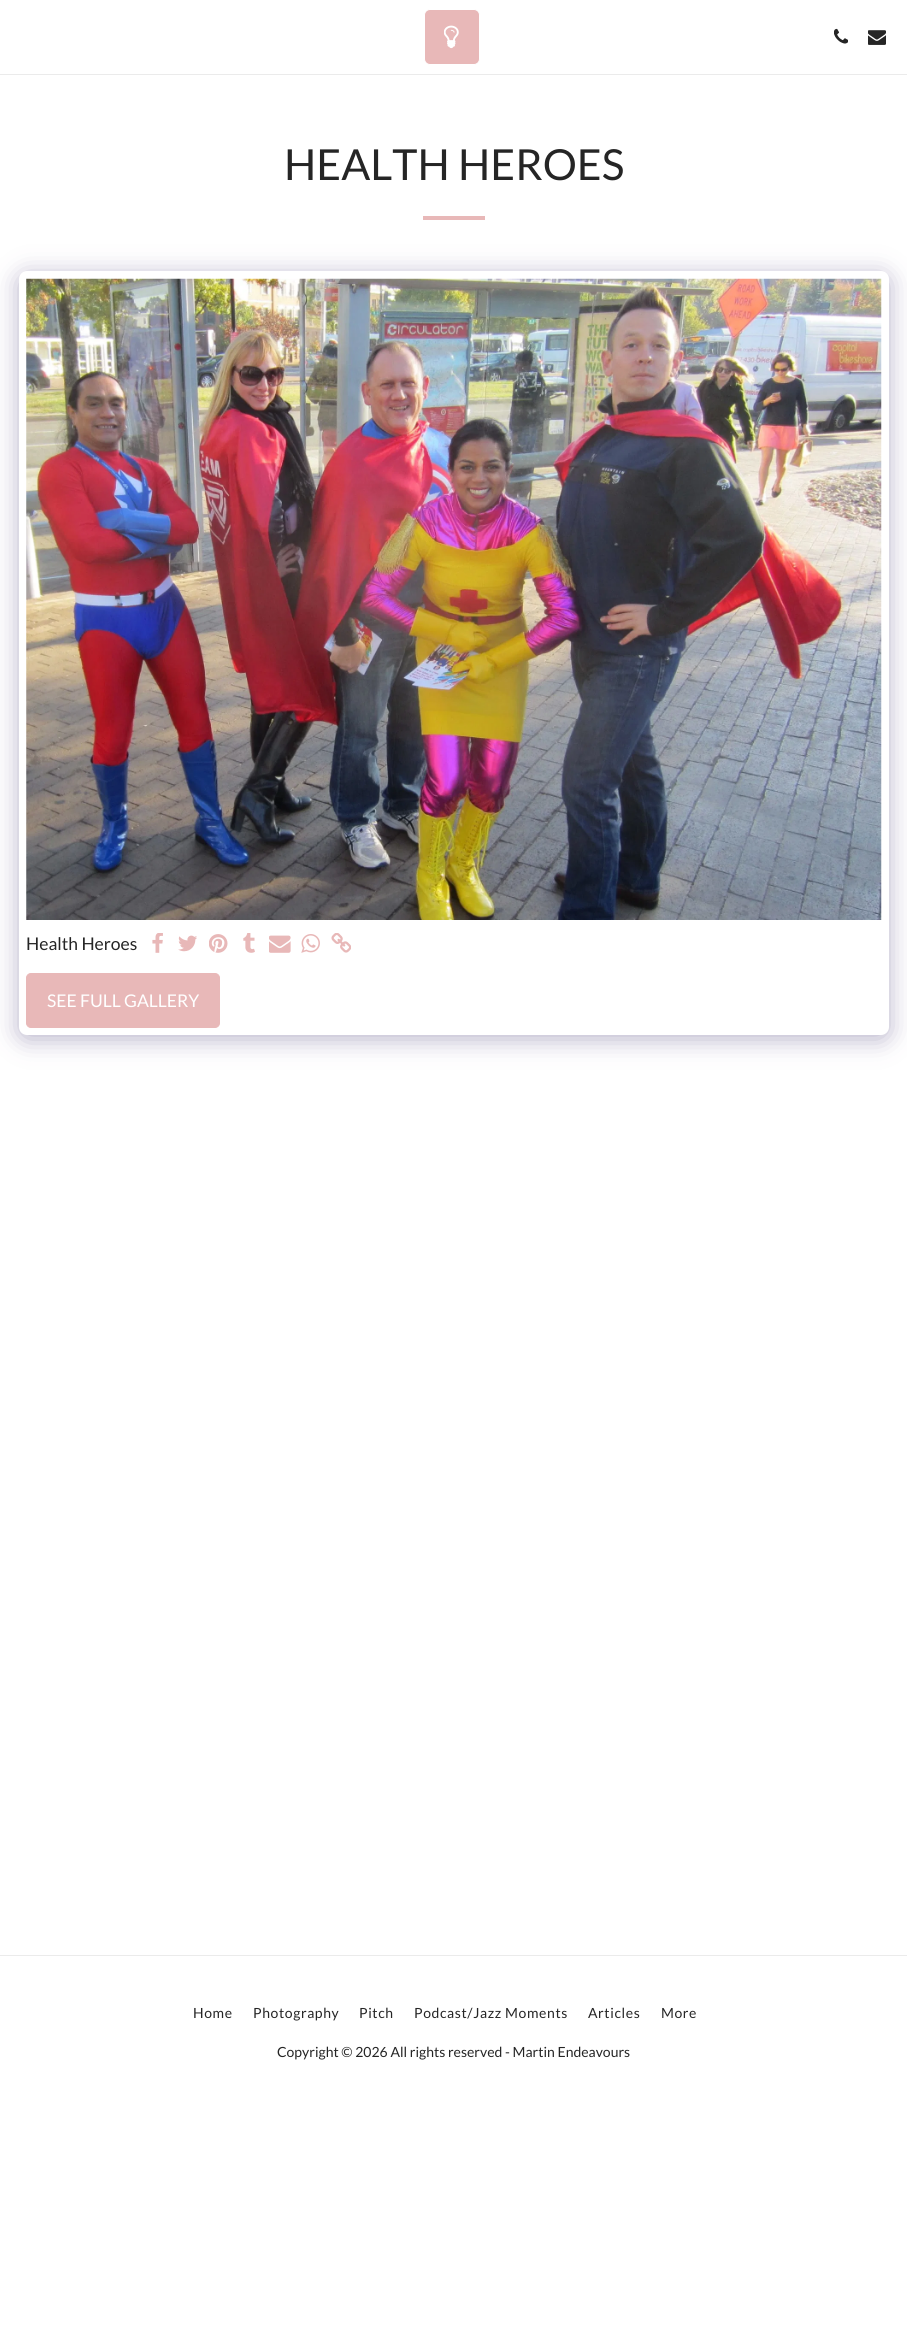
import math
import cairocffi as cairo

surface = cairo.ImageSurface(cairo.FORMAT_RGB24, 907, 2350)
cr = cairo.Context(surface)
options = cairo.FontOptions()
options.set_hint_metrics(cairo.HINT_METRICS_OFF)
options.set_hint_style(cairo.HINT_STYLE_NONE)
cr.set_font_options(options)
cr.set_miter_limit(4)


def use_color(code):
    cr.set_source_rgb(*(v / 255 for v in bytes.fromhex(code[-6:])))


def spaced_text(x, y, s, letter, word):
    cr.move_to(x, y)
    for ch in s:
        cr.show_text(ch)
        cr.rel_move_to(letter + word * (ch == ' '), 0)


def round_rect(x, y, w, h, r):
    cr.new_sub_path()
    for i, (u, v) in enumerate([(x + w - r, y + h - r), (x + r, y + h - r), (x + r, y + r), (x + w - r, y + r)]):
        cr.arc(u, v, r, i * math.pi / 2, (i + 1) * math.pi / 2)
    cr.close_path()


def shadow(x, y, w, h, r, blur, alpha):
    cr.push_group_with_content(cairo.CONTENT_ALPHA)
    cr.set_operator(cairo.OPERATOR_SOURCE)
    for i in range(15, -16, -2):
        e = blur * i / 6
        if min(w, h) + 2 * e > 0:
            cr.set_source_rgba(0, 0, 0, alpha * math.erfc((i - 1) / 8.5) / 2)
            round_rect(x - e, y - e, w + 2 * e, h + 2 * e, max(0, min(r + e + blur * .6, min(w, h) / 2 + e)))
            cr.fill()
    cr.mask(cr.pop_group())


def picture(path, x, y, w, h):
    cr.save()
    cr.set_source_surface(cairo.ImageSurface.create_from_png(path), x, y)
    cr.rectangle(x, y, w, h)
    cr.fill()
    cr.restore()


use_color("#ffffff")
cr.paint()
use_color("#ebebeb")
cr.rectangle(0, 74, 907, 1)
cr.fill()
use_color("#e8b8b8")
round_rect(424.5, 9.5, 55, 55, 5.5)
cr.fill_preserve()
use_color("#ffffff")
cr.set_line_width(1)
cr.stroke()
picture("img1.png", 444, 25, 15, 24)
picture("img2.png", 834, 28, 14, 16)
picture("img3.png", 868, 30, 18, 15)
cr.select_font_face("Lato")
cr.set_font_size(42.75)
use_color("#252525")
cr.move_to(284, 180)
cr.show_text("HEALTH HEROES")
use_color("#e8b8b8")
cr.rectangle(423, 216, 62, 4)
cr.fill()
use_color("#4d3f7a")
shadow(19, 275, 870, 764, 8, 12.5, 0.4)
use_color("#ffffff")
round_rect(19, 271, 870, 764, 8)
cr.fill()
picture("img4.png", 26, 278, 856, 642)
cr.set_font_size(17.5)
use_color("#252525")
cr.move_to(26, 950)
cr.show_text("Health Heroes")
picture("img5.png", 152, 933, 11, 20)
picture("img6.png", 178, 935, 19, 17)
picture("img7.png", 209, 934, 19, 19)
picture("img8.png", 243, 933, 12, 20)
picture("img9.png", 269, 935, 22, 18)
picture("img10.png", 301, 934, 19, 19)
picture("img11.png", 331, 933, 20, 20)
use_color("#e8b8b8")
round_rect(26.5, 973.5, 193, 54, 4.5)
cr.fill_preserve()
cr.stroke()
use_color("#ffffff")
cr.move_to(47, 1007)
cr.show_text("SEE FULL GALLERY")
use_color("#ebebeb")
cr.rectangle(0, 1955, 907, 1)
cr.fill()
cr.set_font_size(14)
use_color("#252525")
spaced_text(193, 2018, "Home", 0.6, 0)
spaced_text(253, 2018, "Photography", 0.6, 0)
spaced_text(359, 2018, "Pitch", 0.6, 0)
spaced_text(414, 2018, "Podcast/Jazz Moments", 0.6, 0)
spaced_text(588, 2018, "Articles", 0.6, 0)
spaced_text(661, 2018, "More", 0.6, 0)
cr.move_to(277, 2057)
cr.show_text("Copyright © 2026 All rights reserved - Martin Endeavours")
surface.write_to_png("result.png")
